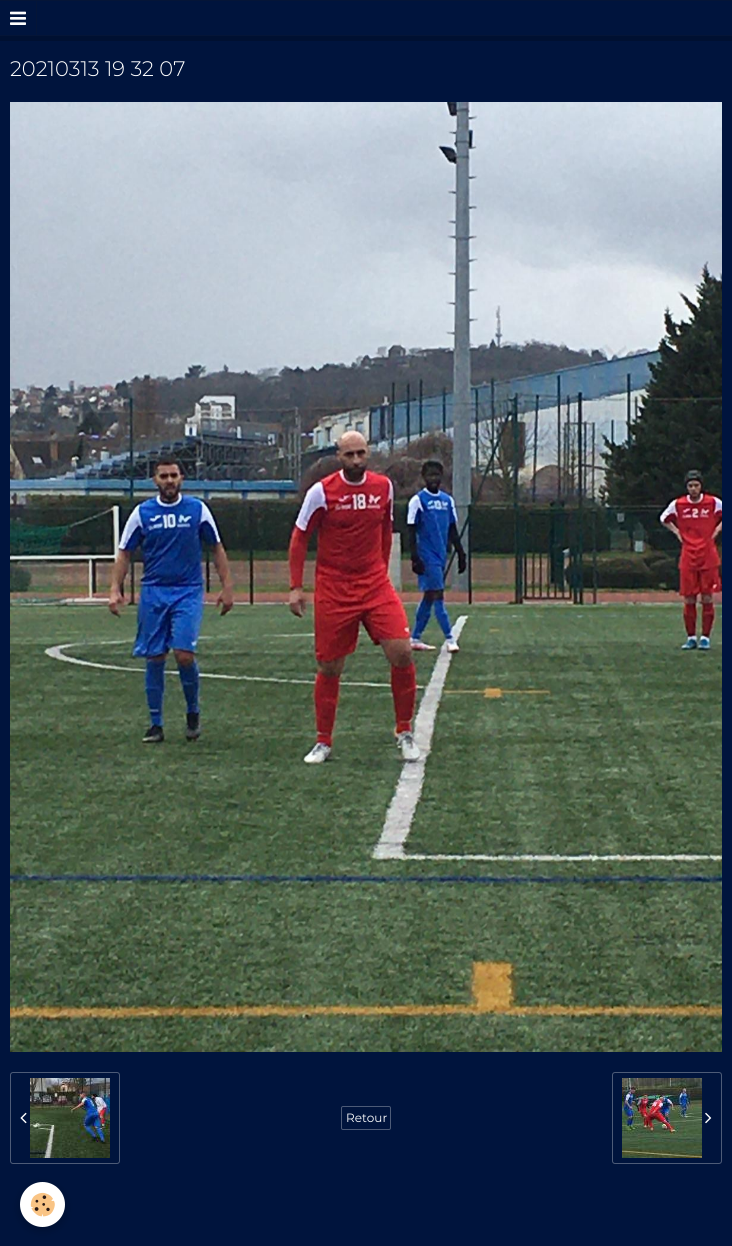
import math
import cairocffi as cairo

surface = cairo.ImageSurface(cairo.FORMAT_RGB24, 732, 1246)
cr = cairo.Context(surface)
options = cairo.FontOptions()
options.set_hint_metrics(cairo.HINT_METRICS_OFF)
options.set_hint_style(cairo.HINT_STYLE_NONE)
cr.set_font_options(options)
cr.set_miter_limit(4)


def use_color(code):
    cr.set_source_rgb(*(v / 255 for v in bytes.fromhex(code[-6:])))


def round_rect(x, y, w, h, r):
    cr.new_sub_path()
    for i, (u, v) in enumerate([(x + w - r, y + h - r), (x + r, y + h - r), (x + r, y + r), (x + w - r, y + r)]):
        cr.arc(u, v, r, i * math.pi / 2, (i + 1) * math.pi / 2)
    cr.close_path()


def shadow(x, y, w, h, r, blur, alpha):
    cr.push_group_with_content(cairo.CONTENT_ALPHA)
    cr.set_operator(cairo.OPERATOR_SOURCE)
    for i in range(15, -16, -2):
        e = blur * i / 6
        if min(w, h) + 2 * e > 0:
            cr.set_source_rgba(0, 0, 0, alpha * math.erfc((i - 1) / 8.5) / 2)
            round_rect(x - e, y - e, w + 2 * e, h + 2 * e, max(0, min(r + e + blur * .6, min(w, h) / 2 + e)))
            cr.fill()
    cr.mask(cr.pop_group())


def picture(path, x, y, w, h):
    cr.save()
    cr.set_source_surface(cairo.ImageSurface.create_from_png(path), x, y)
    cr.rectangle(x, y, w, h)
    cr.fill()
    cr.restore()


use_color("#00143d")
cr.paint()
use_color("#001031")
cr.rectangle(0, 36, 732, 5)
cr.fill()
use_color("#051537")
cr.rectangle(0, 0, 732, 1)
cr.fill()
cr.rectangle(0, 35, 732, 1)
cr.fill()
cr.new_path()
cr.move_to(37, 1)
cr.line_to(37, 35)
cr.line_to(36, 34)
cr.line_to(36, 2)
cr.close_path()
cr.fill()
picture("img1.png", 10, 11, 16, 14)
cr.select_font_face("Montserrat Light")
cr.set_font_size(21)
use_color("#ffffff")
cr.move_to(10, 76)
cr.show_text("20210313 19 32 07")
picture("img2.png", 10, 102, 712, 950)
picture("img3.png", 20, 1112, 7, 12)
picture("img4.png", 30, 1078, 80, 80)
round_rect(10.5, 1072.5, 109, 91, 2.5)
use_color("#4d5b77")
cr.set_line_width(1)
cr.stroke()
round_rect(341.5, 1106.5, 49, 23, 1.5)
cr.stroke()
cr.select_font_face("Montserrat")
cr.set_font_size(12)
use_color("#ffffff")
cr.move_to(346, 1122)
cr.show_text("Retour")
picture("img5.png", 622, 1078, 80, 80)
picture("img6.png", 705, 1112, 7, 12)
round_rect(612.5, 1072.5, 109, 91, 2.5)
use_color("#4d5b77")
cr.stroke()
use_color("#000000")
shadow(20, 1185, 45, 45, 22.5, 5, 0.24)
use_color("#ffffff")
cr.arc(42.5, 1204.5, 22.5, 0, 2 * math.pi)
cr.fill()
picture("img7.png", 30, 1192, 25, 25)
surface.write_to_png("result.png")
